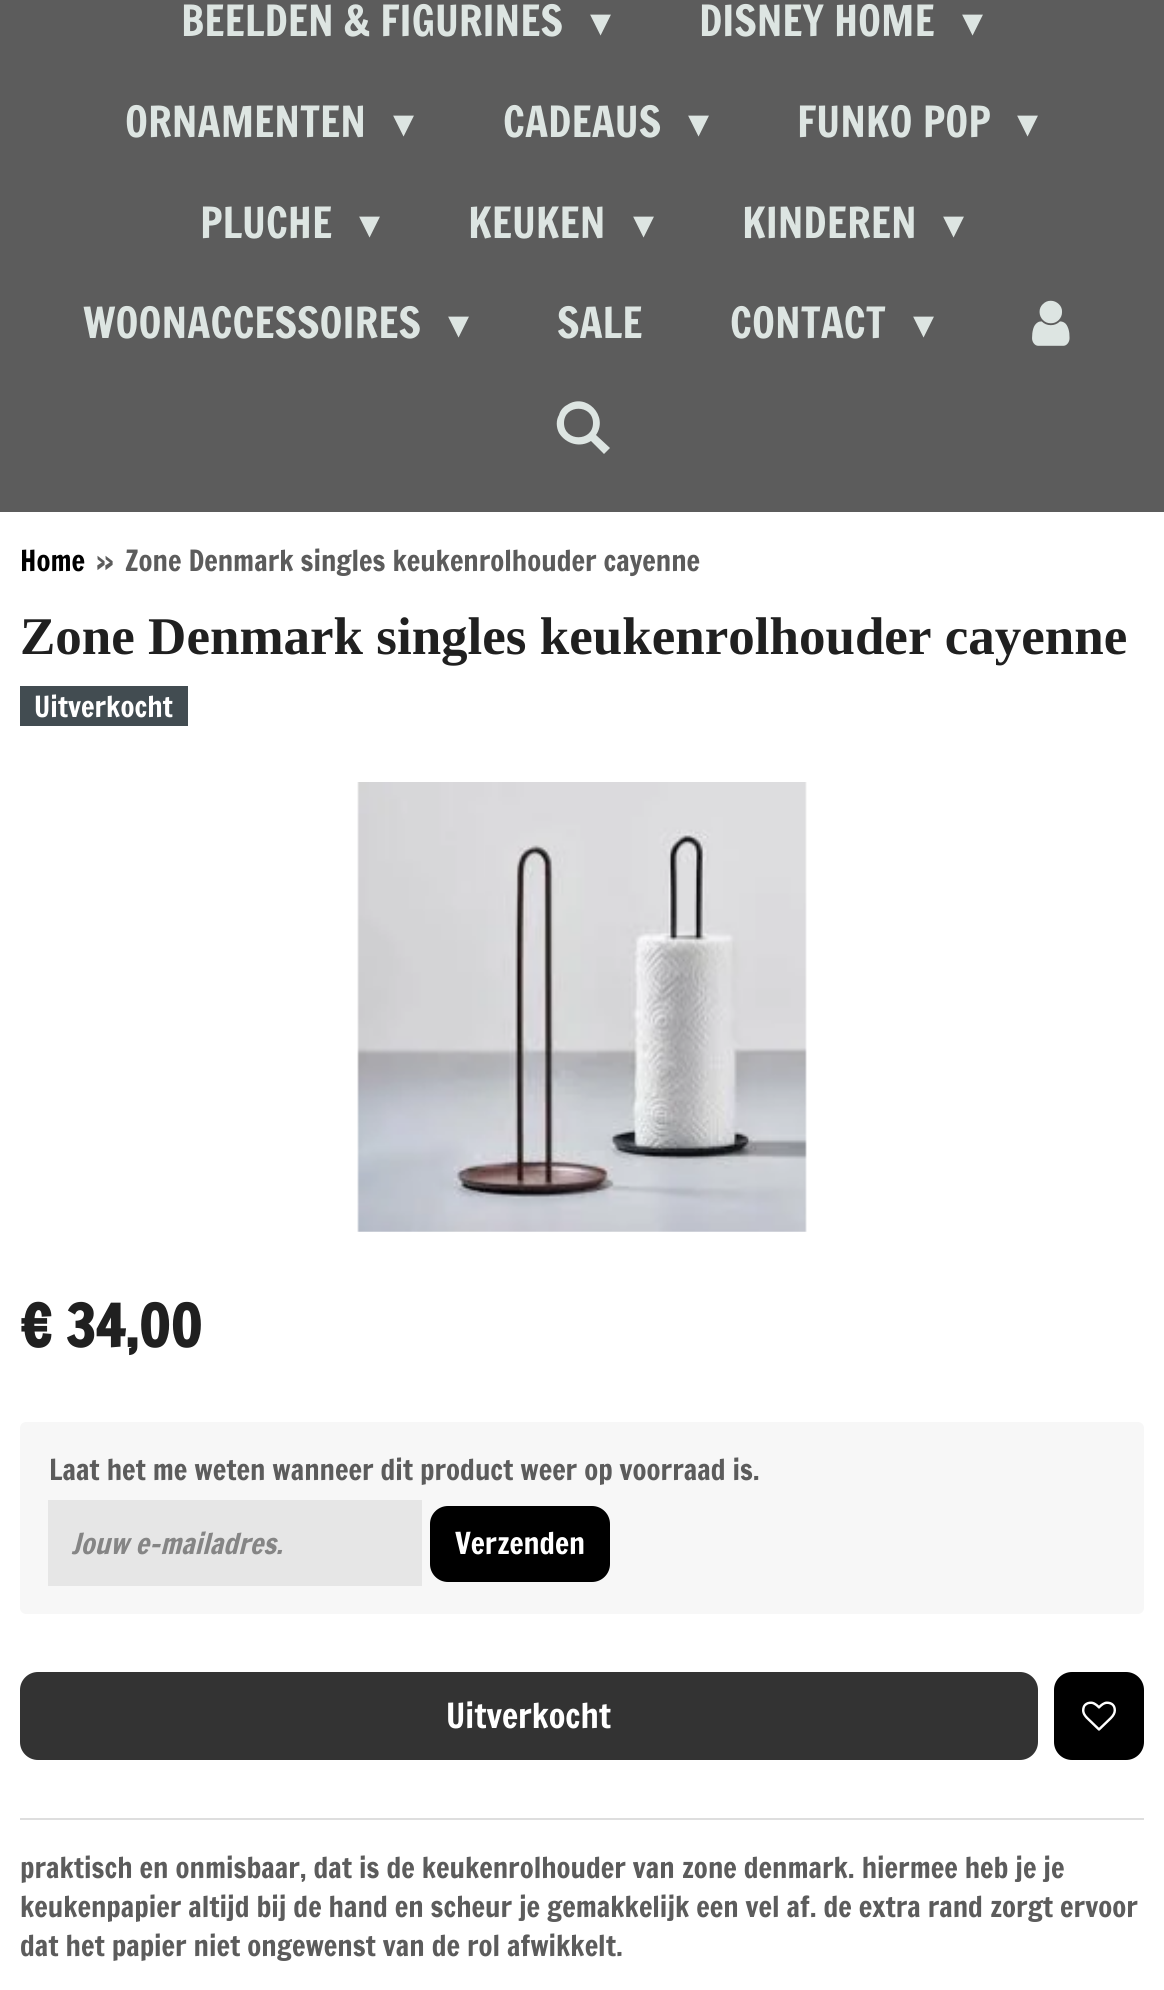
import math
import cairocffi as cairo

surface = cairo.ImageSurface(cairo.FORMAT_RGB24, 1164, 1990)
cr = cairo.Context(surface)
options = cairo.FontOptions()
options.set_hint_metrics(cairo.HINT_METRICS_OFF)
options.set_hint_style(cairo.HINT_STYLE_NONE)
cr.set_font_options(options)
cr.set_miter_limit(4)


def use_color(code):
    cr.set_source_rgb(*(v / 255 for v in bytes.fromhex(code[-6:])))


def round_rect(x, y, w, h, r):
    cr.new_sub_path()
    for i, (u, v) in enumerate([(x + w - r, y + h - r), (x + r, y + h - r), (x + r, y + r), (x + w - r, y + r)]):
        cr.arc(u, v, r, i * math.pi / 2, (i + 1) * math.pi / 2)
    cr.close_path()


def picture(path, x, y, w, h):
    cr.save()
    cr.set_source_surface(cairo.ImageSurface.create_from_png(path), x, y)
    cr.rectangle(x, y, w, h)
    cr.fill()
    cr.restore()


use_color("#ffffff")
cr.paint()
use_color("#5c5c5c")
cr.rectangle(0, 0, 1164, 512)
cr.fill()
cr.select_font_face("Francois One")
cr.set_font_size(42)
use_color("#dde5e2")
cr.move_to(181, 36)
cr.show_text("BEELDEN & FIGURINES")
cr.select_font_face("DejaVu Sans")
cr.move_to(590, 36)
cr.show_text("▾")
cr.select_font_face("Francois One")
cr.move_to(699, 36)
cr.show_text("DISNEY HOME")
cr.select_font_face("DejaVu Sans")
cr.move_to(962, 36)
cr.show_text("▾")
cr.select_font_face("Francois One")
cr.move_to(125, 137)
cr.show_text("ORNAMENTEN")
cr.select_font_face("DejaVu Sans")
cr.move_to(393, 137)
cr.show_text("▾")
cr.select_font_face("Francois One")
cr.move_to(503, 137)
cr.show_text("CADEAUS")
cr.select_font_face("DejaVu Sans")
cr.move_to(688, 137)
cr.show_text("▾")
cr.select_font_face("Francois One")
cr.move_to(797, 137)
cr.show_text("FUNKO POP")
cr.select_font_face("DejaVu Sans")
cr.move_to(1017, 137)
cr.show_text("▾")
cr.select_font_face("Francois One")
cr.move_to(200, 238)
cr.show_text("PLUCHE")
cr.select_font_face("DejaVu Sans")
cr.move_to(359, 238)
cr.show_text("▾")
cr.select_font_face("Francois One")
cr.move_to(468, 238)
cr.show_text("KEUKEN")
cr.select_font_face("DejaVu Sans")
cr.move_to(633, 238)
cr.show_text("▾")
cr.select_font_face("Francois One")
cr.move_to(742, 238)
cr.show_text("KINDEREN")
cr.select_font_face("DejaVu Sans")
cr.move_to(943, 238)
cr.show_text("▾")
cr.select_font_face("Francois One")
cr.move_to(83, 338)
cr.show_text("WOONACCESSOIRES")
cr.select_font_face("DejaVu Sans")
cr.move_to(448, 338)
cr.show_text("▾")
cr.select_font_face("Francois One")
cr.move_to(557, 338)
cr.show_text("SALE")
cr.move_to(730, 338)
cr.show_text("CONTACT")
cr.select_font_face("DejaVu Sans")
cr.move_to(913, 338)
cr.show_text("▾")
picture("img1.png", 1032, 300, 38, 46)
cr.new_path()
cr.move_to(596, 435)
cr.line_to(610, 448)
cr.line_to(604, 454)
cr.line_to(591, 441)
cr.curve_to(580, 448, 566, 444, 559, 433)
cr.curve_to(556, 427, 556, 420, 559, 415)
cr.curve_to(560, 411, 563, 407, 567, 405)
cr.curve_to(586, 392, 609, 416, 596, 435)
cr.close_path()
cr.move_to(593, 423)
cr.curve_to(593, 404, 564, 404, 564, 423)
cr.curve_to(564, 442, 593, 442, 593, 423)
cr.close_path()
cr.fill()
cr.select_font_face("Francois One")
cr.set_font_size(28.6)
use_color("#000000")
cr.move_to(20, 571)
cr.show_text("Home")
use_color("#5c5c5c")
cr.move_to(96, 571)
cr.show_text("»")
cr.move_to(125, 571)
cr.show_text("Zone Denmark singles keukenrolhouder cayenne")
cr.select_font_face("Liberation Serif", cairo.FONT_SLANT_NORMAL, cairo.FONT_WEIGHT_BOLD)
cr.set_font_size(53)
use_color("#202020")
cr.move_to(20, 654)
cr.show_text("Zone Denmark singles keukenrolhouder cayenne")
use_color("#424c51")
cr.rectangle(20, 686, 168, 40)
cr.fill()
cr.select_font_face("Francois One")
cr.set_font_size(28.6)
use_color("#ffffff")
cr.move_to(34, 717)
cr.show_text("Uitverkocht")
picture("img2.png", 357, 782, 450, 450)
cr.select_font_face("Francois One", cairo.FONT_SLANT_NORMAL, cairo.FONT_WEIGHT_BOLD)
cr.set_font_size(57)
use_color("#202020")
cr.move_to(20, 1347)
cr.show_text("€ 34,00")
use_color("#f7f7f7")
round_rect(20, 1422, 1124, 192, 6)
cr.fill()
cr.select_font_face("Francois One")
cr.set_font_size(28.6)
use_color("#5c5c5c")
cr.move_to(49, 1480)
cr.show_text("Laat het me weten wanneer dit product weer op voorraad is.")
use_color("#e6e6e6")
cr.rectangle(48, 1500, 374, 86)
cr.fill()
cr.select_font_face("Francois One", cairo.FONT_SLANT_ITALIC)
use_color("#858585")
cr.move_to(71, 1554)
cr.show_text("Jouw e-mailadres.")
use_color("#000000")
round_rect(430, 1506, 180, 76, 18)
cr.fill()
cr.select_font_face("Francois One")
cr.set_font_size(29.75)
use_color("#ffffff")
cr.move_to(455, 1554)
cr.show_text("Verzenden")
use_color("#333333")
round_rect(20, 1672, 1018, 88, 18)
cr.fill()
cr.set_font_size(34)
use_color("#ffffff")
cr.move_to(446, 1728)
cr.show_text("Uitverkocht")
use_color("#000000")
round_rect(1054, 1672, 90, 88, 18)
cr.fill()
picture("img3.png", 1082, 1701, 34, 30)
use_color("#dedede")
cr.rectangle(20, 1818, 1124, 2)
cr.fill()
cr.set_font_size(28.6)
use_color("#5c5c5c")
cr.move_to(20, 1878)
cr.show_text("praktisch en onmisbaar, dat is de keukenrolhouder van zone denmark. hiermee heb je je")
cr.move_to(20, 1917)
cr.show_text("keukenpapier altijd bij de hand en scheur je gemakkelijk een vel af. de extra rand zorgt ervoor")
cr.move_to(20, 1956)
cr.show_text("dat het papier niet ongewenst van de rol afwikkelt.")
surface.write_to_png("result.png")
